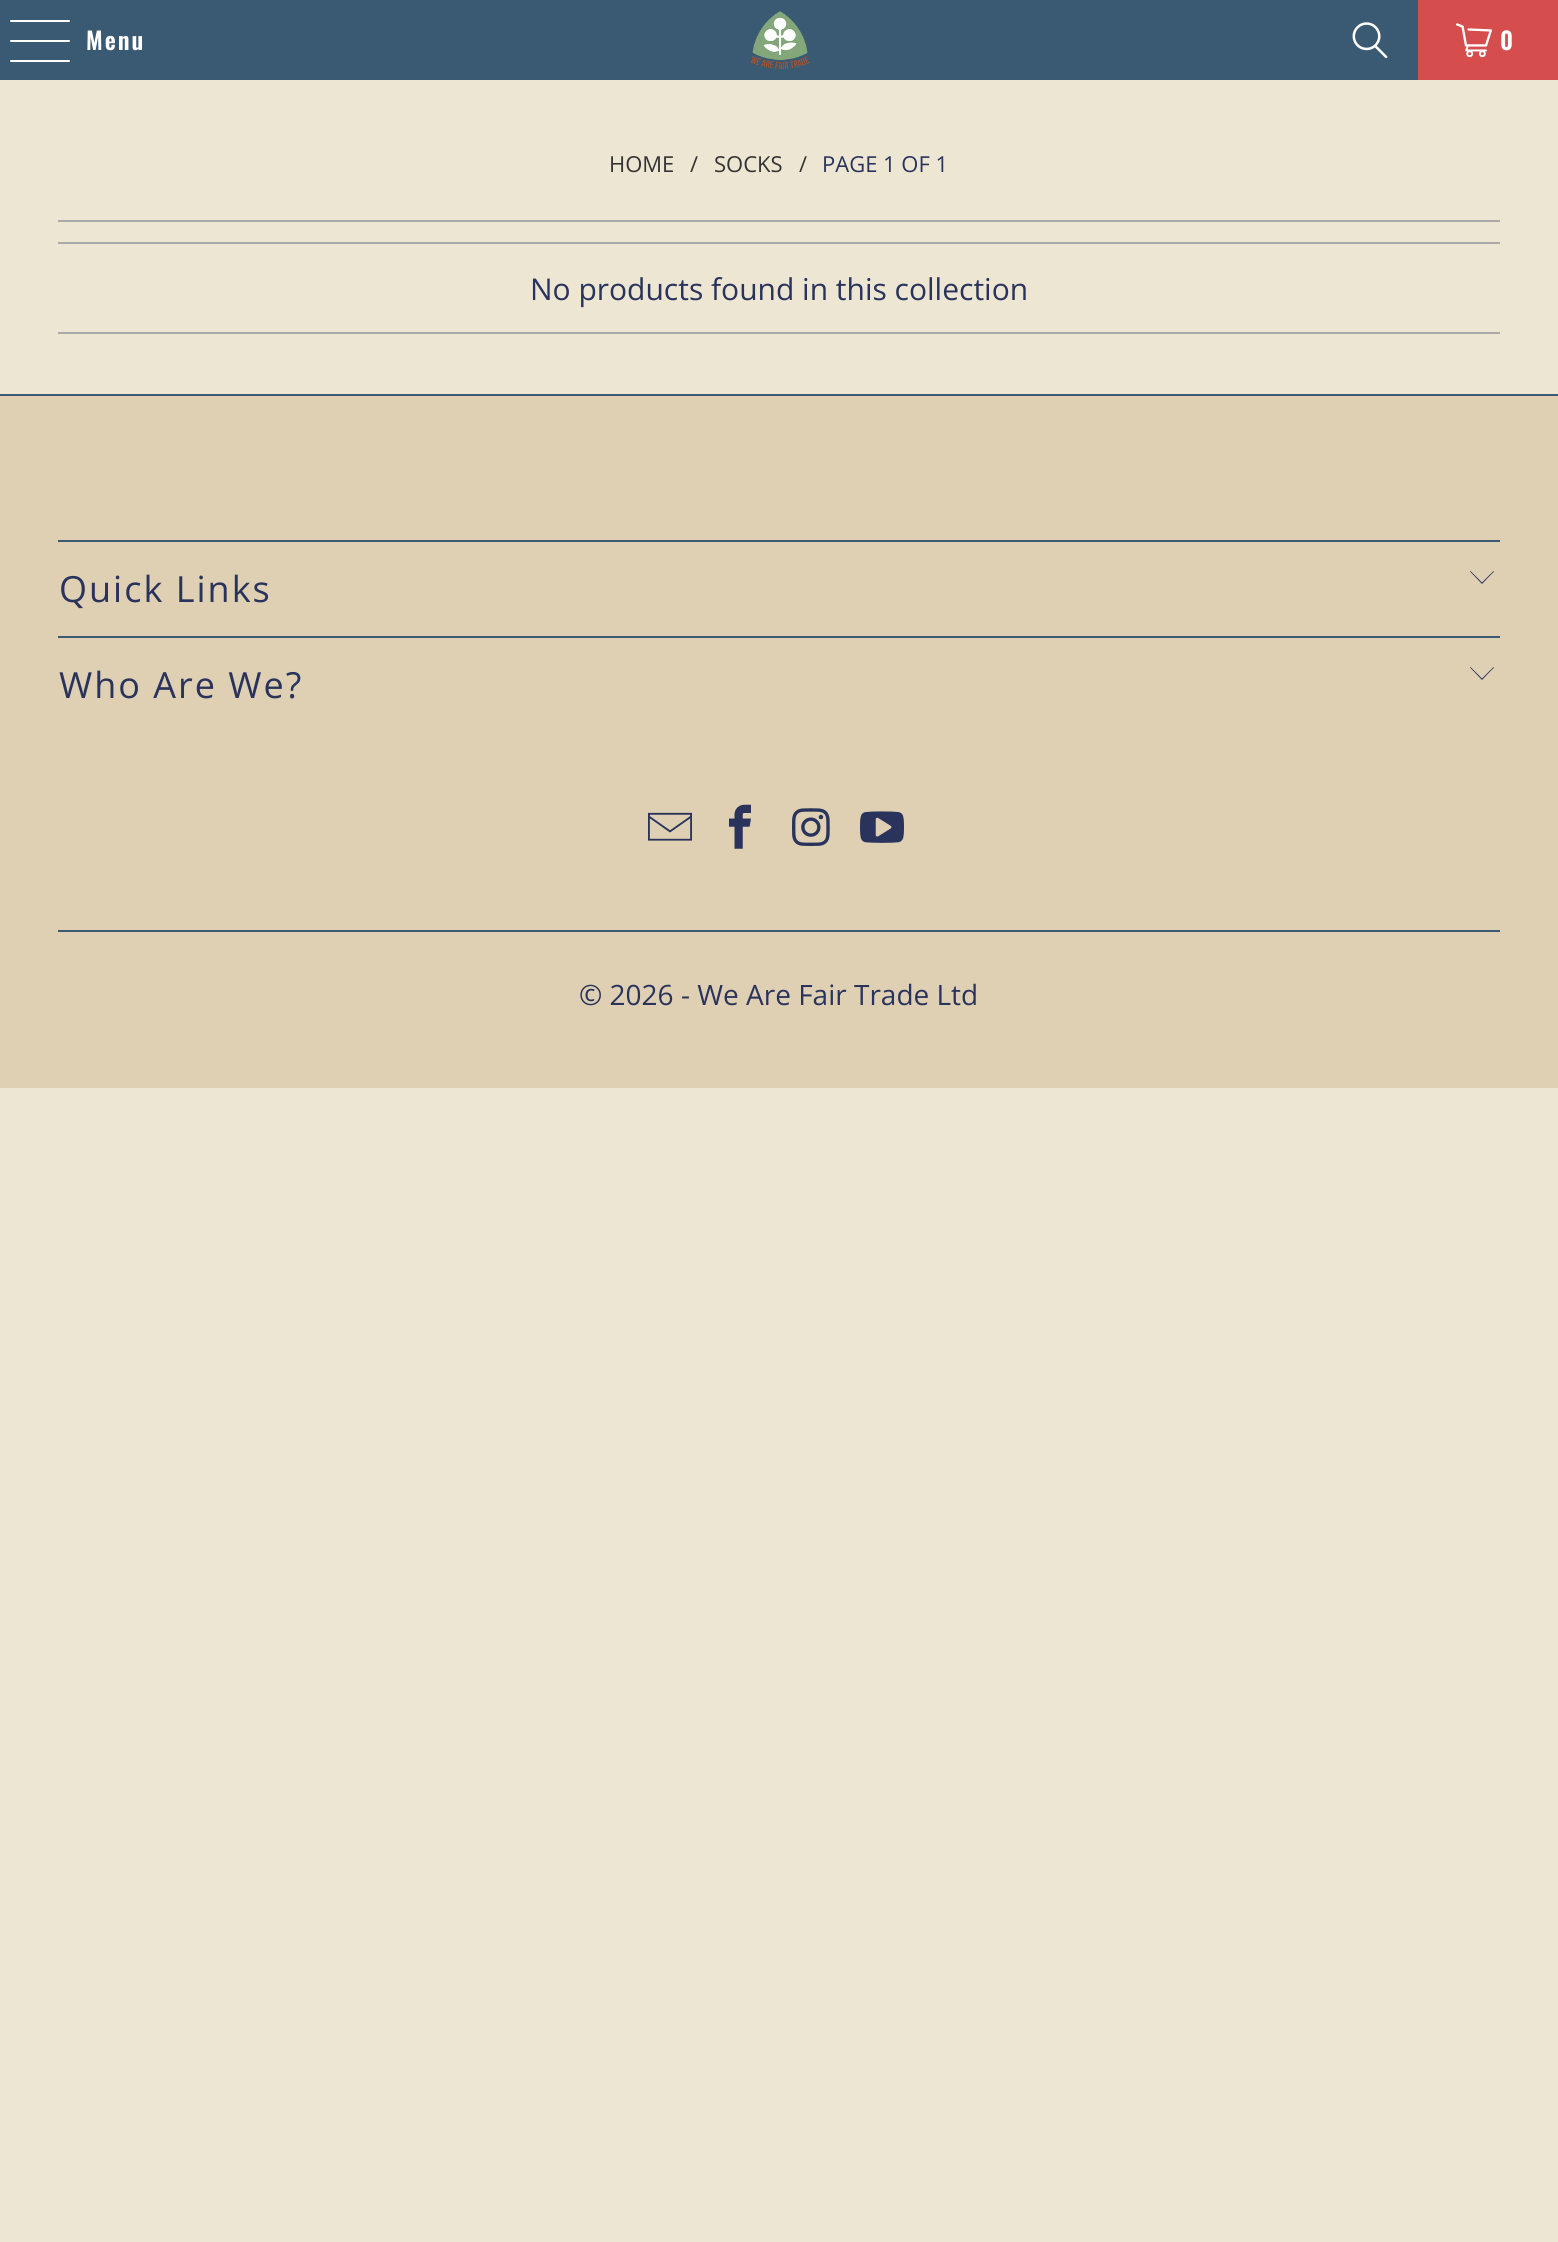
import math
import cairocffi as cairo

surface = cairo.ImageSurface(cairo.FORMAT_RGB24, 1558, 2242)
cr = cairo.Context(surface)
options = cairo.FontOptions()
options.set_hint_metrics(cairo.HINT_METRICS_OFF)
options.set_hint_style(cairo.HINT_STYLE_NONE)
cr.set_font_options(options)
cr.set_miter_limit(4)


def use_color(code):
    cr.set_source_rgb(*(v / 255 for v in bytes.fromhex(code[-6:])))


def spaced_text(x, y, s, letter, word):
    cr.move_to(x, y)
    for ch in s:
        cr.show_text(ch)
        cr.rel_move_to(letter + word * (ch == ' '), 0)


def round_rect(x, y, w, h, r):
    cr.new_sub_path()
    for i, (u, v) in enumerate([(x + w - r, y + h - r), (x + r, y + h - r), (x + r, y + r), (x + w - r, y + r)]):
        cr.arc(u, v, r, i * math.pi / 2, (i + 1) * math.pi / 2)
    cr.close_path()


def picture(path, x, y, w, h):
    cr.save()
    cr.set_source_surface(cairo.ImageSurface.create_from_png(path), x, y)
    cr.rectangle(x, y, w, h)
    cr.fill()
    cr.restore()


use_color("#ede6d3")
cr.paint()
use_color("#3a5972")
cr.rectangle(0, 0, 1418, 80)
cr.fill()
use_color("#ffffff")
round_rect(10, 20, 60, 2, 1)
cr.fill()
round_rect(10, 40, 60, 2, 1)
cr.fill()
round_rect(10, 60, 60, 2, 1)
cr.fill()
cr.select_font_face("Oswald SemiBold")
cr.set_font_size(24)
spaced_text(86, 50, "Menu", 2, 0)
picture("img1.png", 750, 11, 60, 59)
picture("img2.png", 1352, 22, 36, 37)
use_color("#d54d4d")
cr.rectangle(1418, 0, 140, 80)
cr.fill()
picture("img3.png", 1456, 23, 36, 35)
use_color("#ffffff")
spaced_text(1500, 50, "0", 2, 0)
cr.select_font_face("Open Sans")
cr.set_font_size(22)
use_color("#333333")
cr.move_to(609, 172)
cr.show_text("HOME")
cr.move_to(690, 172)
cr.show_text("/")
cr.move_to(714, 172)
cr.show_text("SOCKS")
cr.move_to(799, 172)
cr.show_text("/")
use_color("#29335c")
cr.move_to(822, 172)
cr.show_text("PAGE 1 OF 1")
use_color("#aaaaaa")
cr.rectangle(58, 220, 1442, 2)
cr.fill()
cr.rectangle(58, 242, 1442, 2)
cr.fill()
cr.rectangle(58, 332, 1442, 2)
cr.fill()
cr.set_font_size(30)
use_color("#29335c")
cr.move_to(530, 300)
cr.show_text("No products found in this collection")
use_color("#dfd0b3")
cr.rectangle(0, 396, 1558, 692)
cr.fill()
use_color("#3a5972")
cr.rectangle(0, 394, 1558, 2)
cr.fill()
cr.rectangle(58, 540, 1442, 2)
cr.fill()
cr.set_font_size(36)
use_color("#29335c")
spaced_text(59, 602, "Quick Links", 2, 0)
cr.new_path()
cr.move_to(1482, 584)
cr.line_to(1470, 571.5)
cr.line_to(1470.5, 571)
cr.line_to(1482, 582.5)
cr.line_to(1493.5, 571)
cr.line_to(1494, 571.5)
cr.close_path()
cr.fill()
use_color("#3a5972")
cr.rectangle(58, 636, 1442, 2)
cr.fill()
use_color("#29335c")
spaced_text(59, 698, "Who Are We?", 2, 0)
cr.new_path()
cr.move_to(1482, 680)
cr.line_to(1470, 667.5)
cr.line_to(1470.5, 667)
cr.line_to(1482, 678.5)
cr.line_to(1493.5, 667)
cr.line_to(1494, 667.5)
cr.close_path()
cr.fill()
picture("img4.png", 648, 812, 44, 29)
picture("img5.png", 729, 804, 22, 45)
picture("img6.png", 792, 808, 38, 38)
picture("img7.png", 860, 811, 44, 32)
use_color("#3a5972")
cr.rectangle(58, 930, 1442, 2)
cr.fill()
cr.set_font_size(28)
use_color("#29335c")
cr.move_to(579, 1005)
cr.show_text("© 2026 - We Are Fair Trade Ltd")
surface.write_to_png("result.png")
